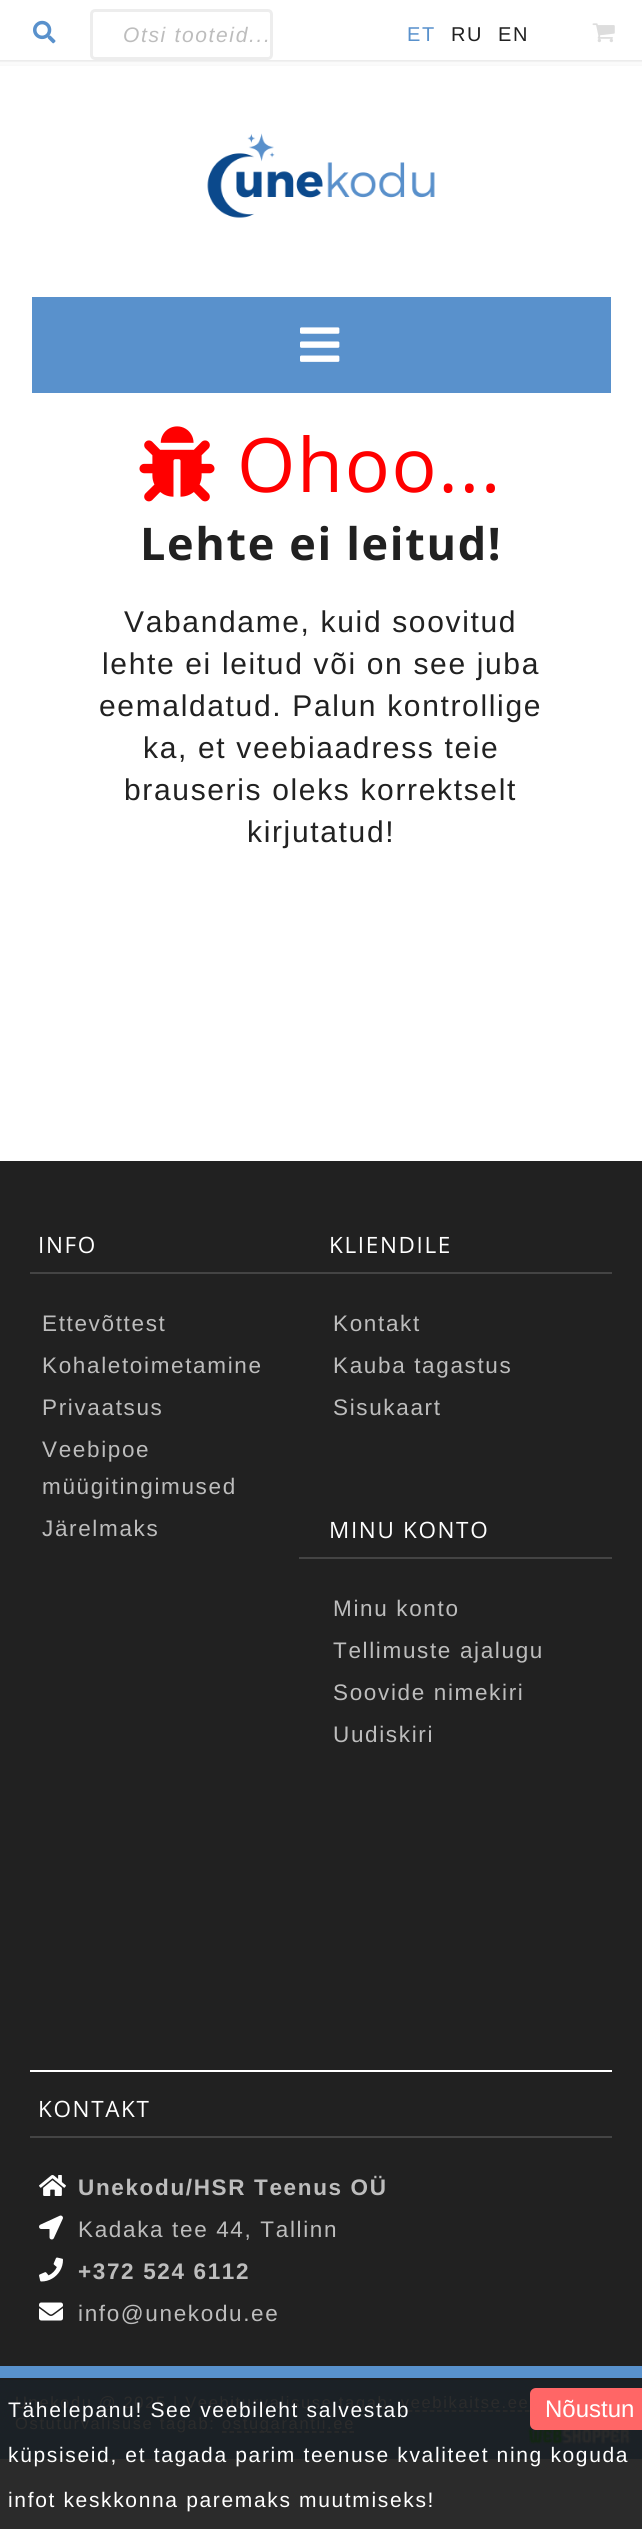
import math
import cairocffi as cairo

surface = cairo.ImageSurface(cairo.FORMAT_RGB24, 642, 2529)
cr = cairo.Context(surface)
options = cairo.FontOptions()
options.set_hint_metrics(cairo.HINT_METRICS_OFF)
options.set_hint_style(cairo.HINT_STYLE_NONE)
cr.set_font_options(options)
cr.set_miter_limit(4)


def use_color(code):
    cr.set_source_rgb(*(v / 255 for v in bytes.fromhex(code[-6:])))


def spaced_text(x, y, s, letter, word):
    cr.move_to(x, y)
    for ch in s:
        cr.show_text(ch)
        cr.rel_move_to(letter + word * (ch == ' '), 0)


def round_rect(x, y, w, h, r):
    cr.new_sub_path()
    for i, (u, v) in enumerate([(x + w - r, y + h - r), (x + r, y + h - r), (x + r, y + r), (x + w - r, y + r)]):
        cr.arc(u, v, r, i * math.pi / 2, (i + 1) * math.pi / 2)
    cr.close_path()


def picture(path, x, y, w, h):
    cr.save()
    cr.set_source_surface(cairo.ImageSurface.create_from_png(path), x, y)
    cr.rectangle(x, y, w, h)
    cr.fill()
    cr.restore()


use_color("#ffffff")
cr.paint()
use_color("#2b2b2b")
cr.rectangle(0, 2459, 642, 70)
cr.fill()
picture("img1.png", 33, 20, 23, 24)
round_rect(91.5, 10.5, 180, 48, 3.5)
use_color("#ededed")
cr.set_line_width(3)
cr.stroke()
cr.select_font_face("Liberation Sans", cairo.FONT_SLANT_ITALIC)
cr.set_font_size(21)
use_color("#bdbdbd")
spaced_text(123, 42, "Otsi tooteid...", 1.65, 0)
cr.select_font_face("Liberation Sans")
cr.set_font_size(20)
use_color("#5991cc")
spaced_text(407, 41, "ET", 1.65, 0)
use_color("#212121")
spaced_text(451, 41, "RU", 1.65, 0)
spaced_text(498, 41, "EN", 1.65, 0)
picture("img2.png", 592, 23, 23, 20)
picture("img3.png", 207, 133, 228, 85)
use_color("#5991cc")
cr.rectangle(32, 297, 579, 96)
cr.fill()
picture("img4.png", 300, 327, 40, 35)
picture("img5.png", 139, 426, 76, 76)
cr.select_font_face("Open Sans")
cr.set_font_size(75)
use_color("#ff0000")
spaced_text(237, 492, "Ohoo...", 1.65, 0)
cr.select_font_face("Open Sans", cairo.FONT_SLANT_NORMAL, cairo.FONT_WEIGHT_BOLD)
cr.set_font_size(45)
use_color("#212121")
spaced_text(140, 560, "Lehte ei leitud!", 1.65, 0)
cr.select_font_face("Liberation Sans")
cr.set_font_size(30)
spaced_text(124, 632, "Vabandame, kuid soovitud", 1.65, 0)
spaced_text(102, 674, "lehte ei leitud või on see juba", 1.65, 0)
spaced_text(99, 716, "eemaldatud. Palun kontrollige", 1.65, 0)
spaced_text(143, 758, "ka, et veebiaadress teie", 1.65, 0)
spaced_text(124, 800, "brauseris oleks korrektselt", 1.65, 0)
spaced_text(247, 842, "kirjutatud!", 1.65, 0)
use_color("#1e1e1f")
cr.rectangle(0, 2378, 642, 2)
cr.fill()
use_color("#1b2126")
cr.rectangle(0, 2380, 642, 79)
cr.fill()
cr.set_font_size(16.5)
use_color("#2b2b2b")
spaced_text(15, 2408, "Unekodu @ 2025 | Veebiturvalisuse tagab: veebikaitse.ee", 1.65, 0)
cr.new_path()
cr.move_to(400.5, 2411)
cr.line_to(529.5, 2411)
cr.set_line_width(1.5)
cr.set_dash([4.5, 2.82])
cr.stroke()
cr.set_font_size(21)
use_color("#ffffff")
spaced_text(8, 2417, "Tähelepanu! See veebileht salvestab", 1.65, 0)
picture("img11.png", 527, 2428, 104, 16)
use_color("#ff6666")
round_rect(530, 2388, 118, 42, 6)
cr.fill()
cr.set_font_size(24)
use_color("#ffffff")
cr.move_to(545, 2417)
cr.show_text("Nõustun")
cr.set_font_size(21)
spaced_text(8, 2462, "küpsiseid, et tagada parim teenuse kvaliteet ning koguda", 1.65, 0)
spaced_text(8, 2507, "infot keskkonna paremaks muutmiseks!", 1.65, 0)
picture("img6.png", 0, 60, 642, 6)
use_color("#212121")
cr.rectangle(0, 1161, 642, 1205)
cr.fill()
use_color("#444444")
cr.rectangle(30, 1272, 582, 2)
cr.fill()
cr.select_font_face("Open Sans")
cr.set_font_size(22.5)
use_color("#ffffff")
spaced_text(38, 1253, "INFO", 1.65, 0)
cr.select_font_face("Liberation Sans")
use_color("#bdbdbd")
spaced_text(42, 1331, "Ettevõttest", 1.65, 0)
spaced_text(42, 1373, "Kohaletoimetamine", 1.65, 0)
spaced_text(42, 1415, "Privaatsus", 1.65, 0)
spaced_text(42, 1457, "Veebipoe", 1.65, 0)
spaced_text(42, 1494, "müügitingimused", 1.65, 0)
spaced_text(42, 1536, "Järelmaks", 1.65, 0)
cr.select_font_face("Open Sans")
use_color("#ffffff")
spaced_text(329, 1253, "KLIENDILE", 1.65, 0)
cr.select_font_face("Liberation Sans")
use_color("#bdbdbd")
spaced_text(333, 1331, "Kontakt", 1.65, 0)
spaced_text(333, 1373, "Kauba tagastus", 1.65, 0)
spaced_text(333, 1415, "Sisukaart", 1.65, 0)
use_color("#444444")
cr.rectangle(299, 1557, 313, 2)
cr.fill()
cr.select_font_face("Open Sans")
use_color("#ffffff")
spaced_text(329, 1538, "MINU KONTO", 1.65, 0)
cr.select_font_face("Liberation Sans")
use_color("#bdbdbd")
spaced_text(333, 1616, "Minu konto", 1.65, 0)
spaced_text(333, 1658, "Tellimuste ajalugu", 1.65, 0)
spaced_text(333, 1700, "Soovide nimekiri", 1.65, 0)
spaced_text(333, 1742, "Uudiskiri", 1.65, 0)
use_color("#ffffff")
cr.rectangle(30, 2070, 582, 2)
cr.fill()
use_color("#444444")
cr.rectangle(30, 2136, 582, 2)
cr.fill()
cr.select_font_face("Open Sans")
use_color("#ffffff")
spaced_text(38, 2117, "KONTAKT", 1.65, 0)
picture("img7.png", 39, 2175, 27, 21)
cr.select_font_face("Liberation Sans", cairo.FONT_SLANT_NORMAL, cairo.FONT_WEIGHT_BOLD)
use_color("#bdbdbd")
spaced_text(78, 2195, "Unekodu/HSR Teenus OÜ", 1.65, 0)
picture("img8.png", 39, 2215, 24, 25)
cr.select_font_face("Liberation Sans")
spaced_text(78, 2237, "Kadaka tee 44, Tallinn", 1.65, 0)
picture("img9.png", 39, 2257, 24, 25)
cr.select_font_face("Liberation Sans", cairo.FONT_SLANT_NORMAL, cairo.FONT_WEIGHT_BOLD)
spaced_text(78, 2279, "+372 524 6112", 1.65, 0)
picture("img10.png", 39, 2302, 24, 19)
cr.select_font_face("Liberation Sans")
spaced_text(78, 2321, "info@unekodu.ee", 1.65, 0)
use_color("#5991cc")
cr.rectangle(0, 2366, 642, 12)
cr.fill()
cr.set_font_size(16.5)
use_color("#2b2b2b")
spaced_text(15, 2429, "Ostuturvalisuse tagab:", 1.65, 0)
cr.new_path()
cr.move_to(222, 2432)
cr.line_to(354, 2432)
cr.set_dash([4.5, 3])
cr.stroke()
spaced_text(222, 2429, "ostugarantii.ee", 1.65, 0)
surface.write_to_png("result.png")
